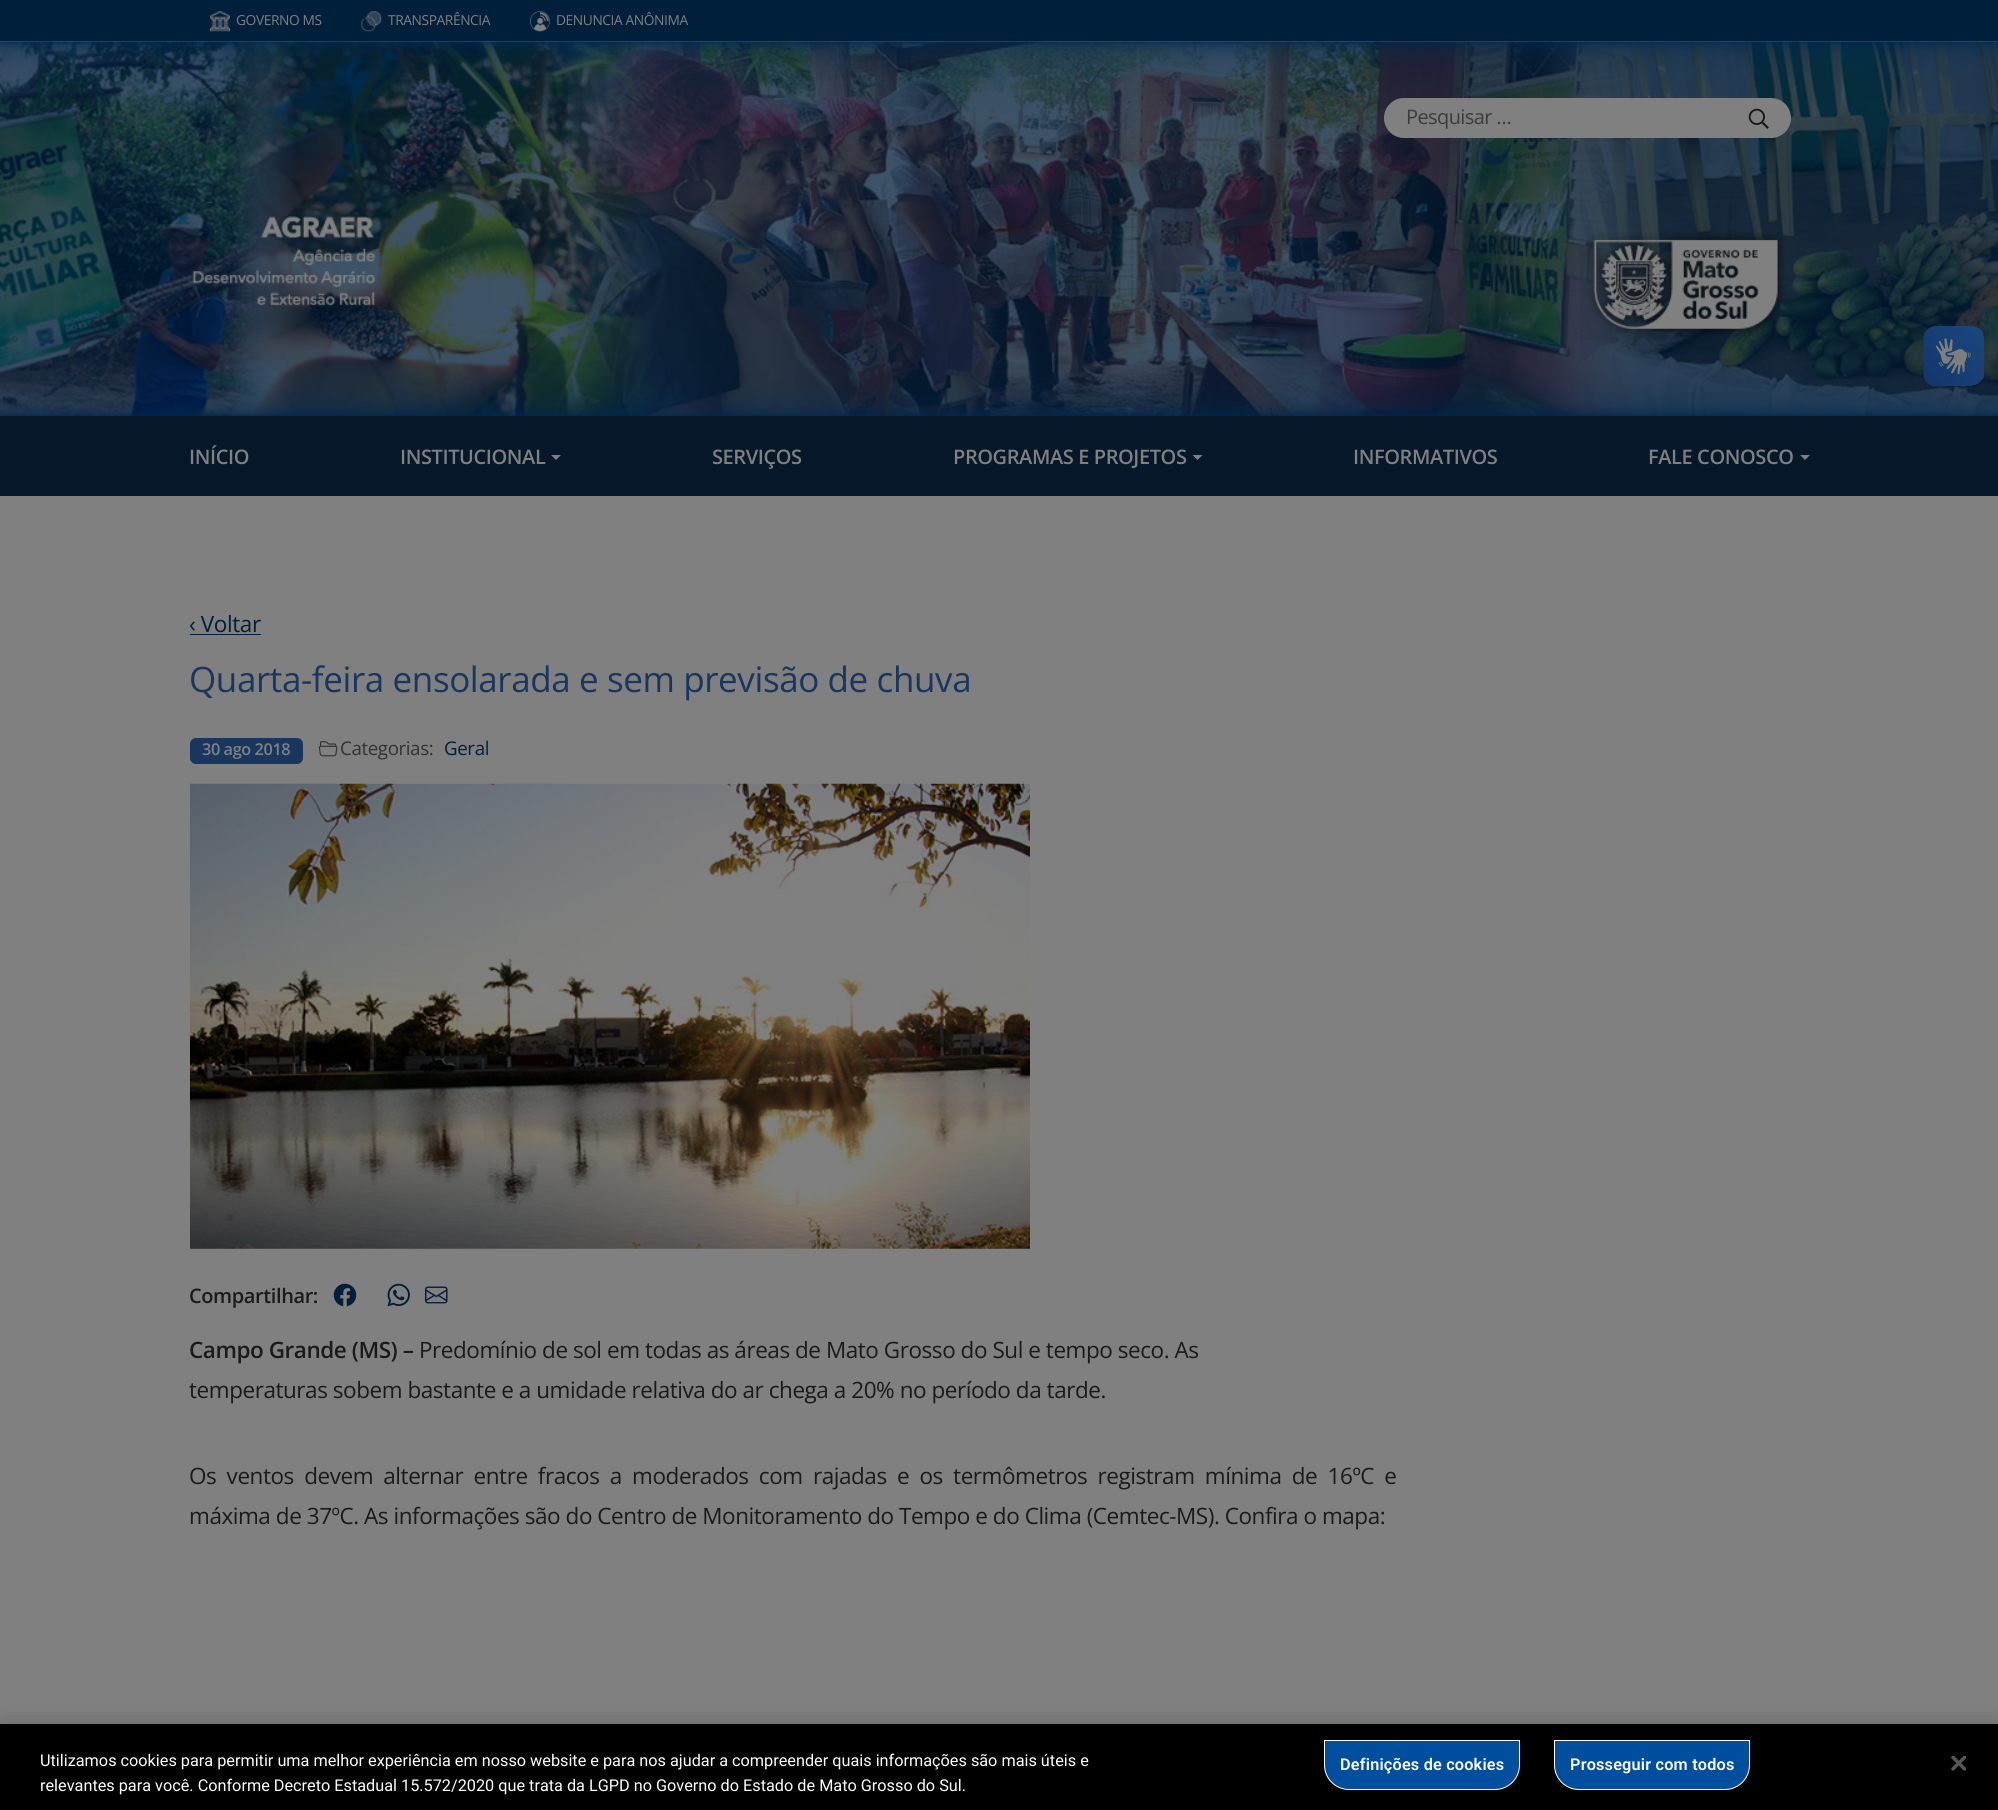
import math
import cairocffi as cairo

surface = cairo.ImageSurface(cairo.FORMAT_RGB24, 1998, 1810)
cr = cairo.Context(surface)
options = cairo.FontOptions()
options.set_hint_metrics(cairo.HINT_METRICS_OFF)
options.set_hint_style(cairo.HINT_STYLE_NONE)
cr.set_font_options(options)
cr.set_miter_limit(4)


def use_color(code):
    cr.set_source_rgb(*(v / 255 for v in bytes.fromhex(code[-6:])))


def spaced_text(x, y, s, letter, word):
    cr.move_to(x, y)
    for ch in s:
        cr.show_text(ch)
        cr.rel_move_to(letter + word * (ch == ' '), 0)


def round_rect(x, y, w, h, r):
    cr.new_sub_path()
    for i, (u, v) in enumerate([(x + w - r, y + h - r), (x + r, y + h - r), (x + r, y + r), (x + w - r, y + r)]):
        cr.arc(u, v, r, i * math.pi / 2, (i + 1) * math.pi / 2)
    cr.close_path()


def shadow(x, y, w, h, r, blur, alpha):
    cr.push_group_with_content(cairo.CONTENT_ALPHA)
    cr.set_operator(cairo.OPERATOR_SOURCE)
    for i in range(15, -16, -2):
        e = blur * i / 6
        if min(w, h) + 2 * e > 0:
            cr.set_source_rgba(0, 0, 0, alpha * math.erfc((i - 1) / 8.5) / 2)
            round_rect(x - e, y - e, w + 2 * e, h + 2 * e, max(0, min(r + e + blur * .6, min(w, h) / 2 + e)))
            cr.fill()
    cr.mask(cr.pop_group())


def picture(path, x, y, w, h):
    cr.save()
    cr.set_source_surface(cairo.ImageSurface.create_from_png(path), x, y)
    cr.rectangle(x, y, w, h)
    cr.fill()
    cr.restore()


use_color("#808080")
cr.paint()
use_color("#001f3b")
cr.rectangle(0, 0, 1998, 41)
cr.fill()
picture("img1.png", 210, 11, 20, 21)
cr.select_font_face("Open Sans")
cr.set_font_size(13.75)
use_color("#808080")
spaced_text(236, 25, "GOVERNO MS", -0.4, 0)
picture("img2.png", 361, 11, 21, 21)
spaced_text(388, 25, "TRANSPARÊNCIA", -0.4, 0)
picture("img3.png", 530, 11, 20, 21)
spaced_text(556, 25, "DENUNCIA ANÔNIMA", -0.4, 0)
picture("img4.png", 0, 41, 1998, 375)
round_rect(1384, 98, 407, 40, 20)
cr.fill()
cr.set_font_size(20)
use_color("#3b3b3b")
spaced_text(1406, 124, "Pesquisar …", -0.6, 0)
picture("img5.png", 1748, 108, 21, 21)
picture("img6.png", 1586, 232, 200, 105)
picture("img7.png", 192, 216, 184, 90)
picture("img8.png", 1923, 326, 61, 61)
picture("img9.png", 1924, 326, 60, 60)
use_color("#051729")
cr.rectangle(0, 416, 1998, 80)
cr.fill()
cr.select_font_face("Open Sans SemiBold")
use_color("#808080")
spaced_text(189, 464, "INÍCIO", -0.4, 0)
spaced_text(400, 464, "INSTITUCIONAL", -0.4, 0)
cr.new_path()
cr.move_to(551, 455)
cr.line_to(561, 455)
cr.line_to(556, 460)
cr.close_path()
cr.fill()
spaced_text(712, 464, "SERVIÇOS", -0.4, 0)
spaced_text(953, 464, "PROGRAMAS E PROJETOS", -0.4, 0)
cr.new_path()
cr.move_to(1192.5, 455)
cr.line_to(1202.5, 455)
cr.line_to(1197.5, 460)
cr.close_path()
cr.fill()
spaced_text(1353, 464, "INFORMATIVOS", -0.4, 0)
spaced_text(1648, 464, "FALE CONOSCO", -0.4, 0)
cr.new_path()
cr.move_to(1800, 455)
cr.line_to(1810, 455)
cr.line_to(1805, 460)
cr.close_path()
cr.fill()
cr.select_font_face("Open Sans")
cr.set_font_size(22.5)
use_color("#001f3b")
spaced_text(189, 632, "‹ Voltar", -0.4, 0)
cr.rectangle(190, 634, 71, 1)
cr.fill()
cr.set_font_size(35)
use_color("#19365f")
spaced_text(189, 692, "Quarta-feira ensolarada e sem previsão de chuva", -0.4, 0)
round_rect(190, 738, 113, 26, 6)
cr.fill()
cr.select_font_face("Open Sans SemiBold")
cr.set_font_size(16.25)
use_color("#808080")
spaced_text(202, 755, "30 ago 2018", -0.4, 0)
picture("img10.png", 318, 741, 20, 16)
cr.select_font_face("Open Sans")
cr.set_font_size(18.75)
use_color("#323232")
spaced_text(340, 755, "Categorias:", -0.4, 0)
use_color("#001f3b")
spaced_text(444, 755, "Geral", -0.4, 0)
picture("img11.png", 190, 783, 840, 466)
cr.select_font_face("Open Sans SemiBold")
cr.set_font_size(20)
use_color("#1a1a1a")
spaced_text(189, 1303, "Compartilhar:", -0.4, 0)
picture("img12.png", 333, 1283, 24, 24)
picture("img13.png", 387, 1283, 23, 24)
picture("img14.png", 425, 1286, 23, 18)
cr.set_font_size(22.5)
spaced_text(189, 1358, "Campo Grande (MS) –", -0.45, 0)
cr.select_font_face("Open Sans")
spaced_text(419, 1358, "Predomínio de sol em todas as áreas de Mato Grosso do Sul e tempo seco. As", -0.45, 0)
spaced_text(189, 1398, "temperaturas sobem bastante e a umidade relativa do ar chega a 20% no período da tarde.", -0.45, 0)
spaced_text(189, 1484, "Os ventos devem alternar entre fracos a moderados com rajadas e os termômetros registram mínima de 16ºC e", -0.45, 4.9)
spaced_text(189, 1524, "máxima de 37ºC. As informações são do Centro de Monitoramento do Tempo e do Clima (Cemtec-MS). Confira o mapa:", -0.45, 0)
use_color("#000000")
shadow(0, 1724, 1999, 86, 0, 11, 0.2)
use_color("#000000")
cr.rectangle(0, 1724, 1998, 86)
cr.fill()
cr.select_font_face("Roboto")
cr.set_font_size(16.25)
use_color("#ffffff")
cr.move_to(40, 1766)
cr.show_text("Utilizamos cookies para permitir uma melhor experiência em nosso website e para nos ajudar a compreender quais informações são mais úteis e")
cr.move_to(40, 1791)
cr.show_text("relevantes para você. Conforme Decreto Estadual 15.572/2020 que trata da LGPD no Governo do Estado de Mato Grosso do Sul.")
use_color("#004f9f")
cr.new_path()
cr.move_to(1324.5, 1740.5)
cr.line_to(1519.5, 1740.5)
cr.line_to(1519.5, 1765)
cr.curve_to(1519.5, 1778.5, 1508.5, 1789.5, 1495, 1789.5)
cr.line_to(1349, 1789.5)
cr.curve_to(1335.5, 1789.5, 1324.5, 1778.5, 1324.5, 1765)
cr.close_path()
cr.fill_preserve()
use_color("#ffffff")
cr.set_line_width(1)
cr.stroke()
cr.select_font_face("Roboto SemiBold")
spaced_text(1340, 1770, "Definições de cookies", 0.2, 0)
use_color("#004f9f")
cr.new_path()
cr.move_to(1554.5, 1740.5)
cr.line_to(1749.5, 1740.5)
cr.line_to(1749.5, 1765)
cr.curve_to(1749.5, 1778.5, 1738.5, 1789.5, 1725, 1789.5)
cr.line_to(1579, 1789.5)
cr.curve_to(1565.5, 1789.5, 1554.5, 1778.5, 1554.5, 1765)
cr.close_path()
cr.fill_preserve()
use_color("#ffffff")
cr.stroke()
spaced_text(1570, 1770, "Prosseguir com todos", 0.2, 0)
picture("img15.png", 1951, 1756, 15, 15)
surface.write_to_png("result.png")
